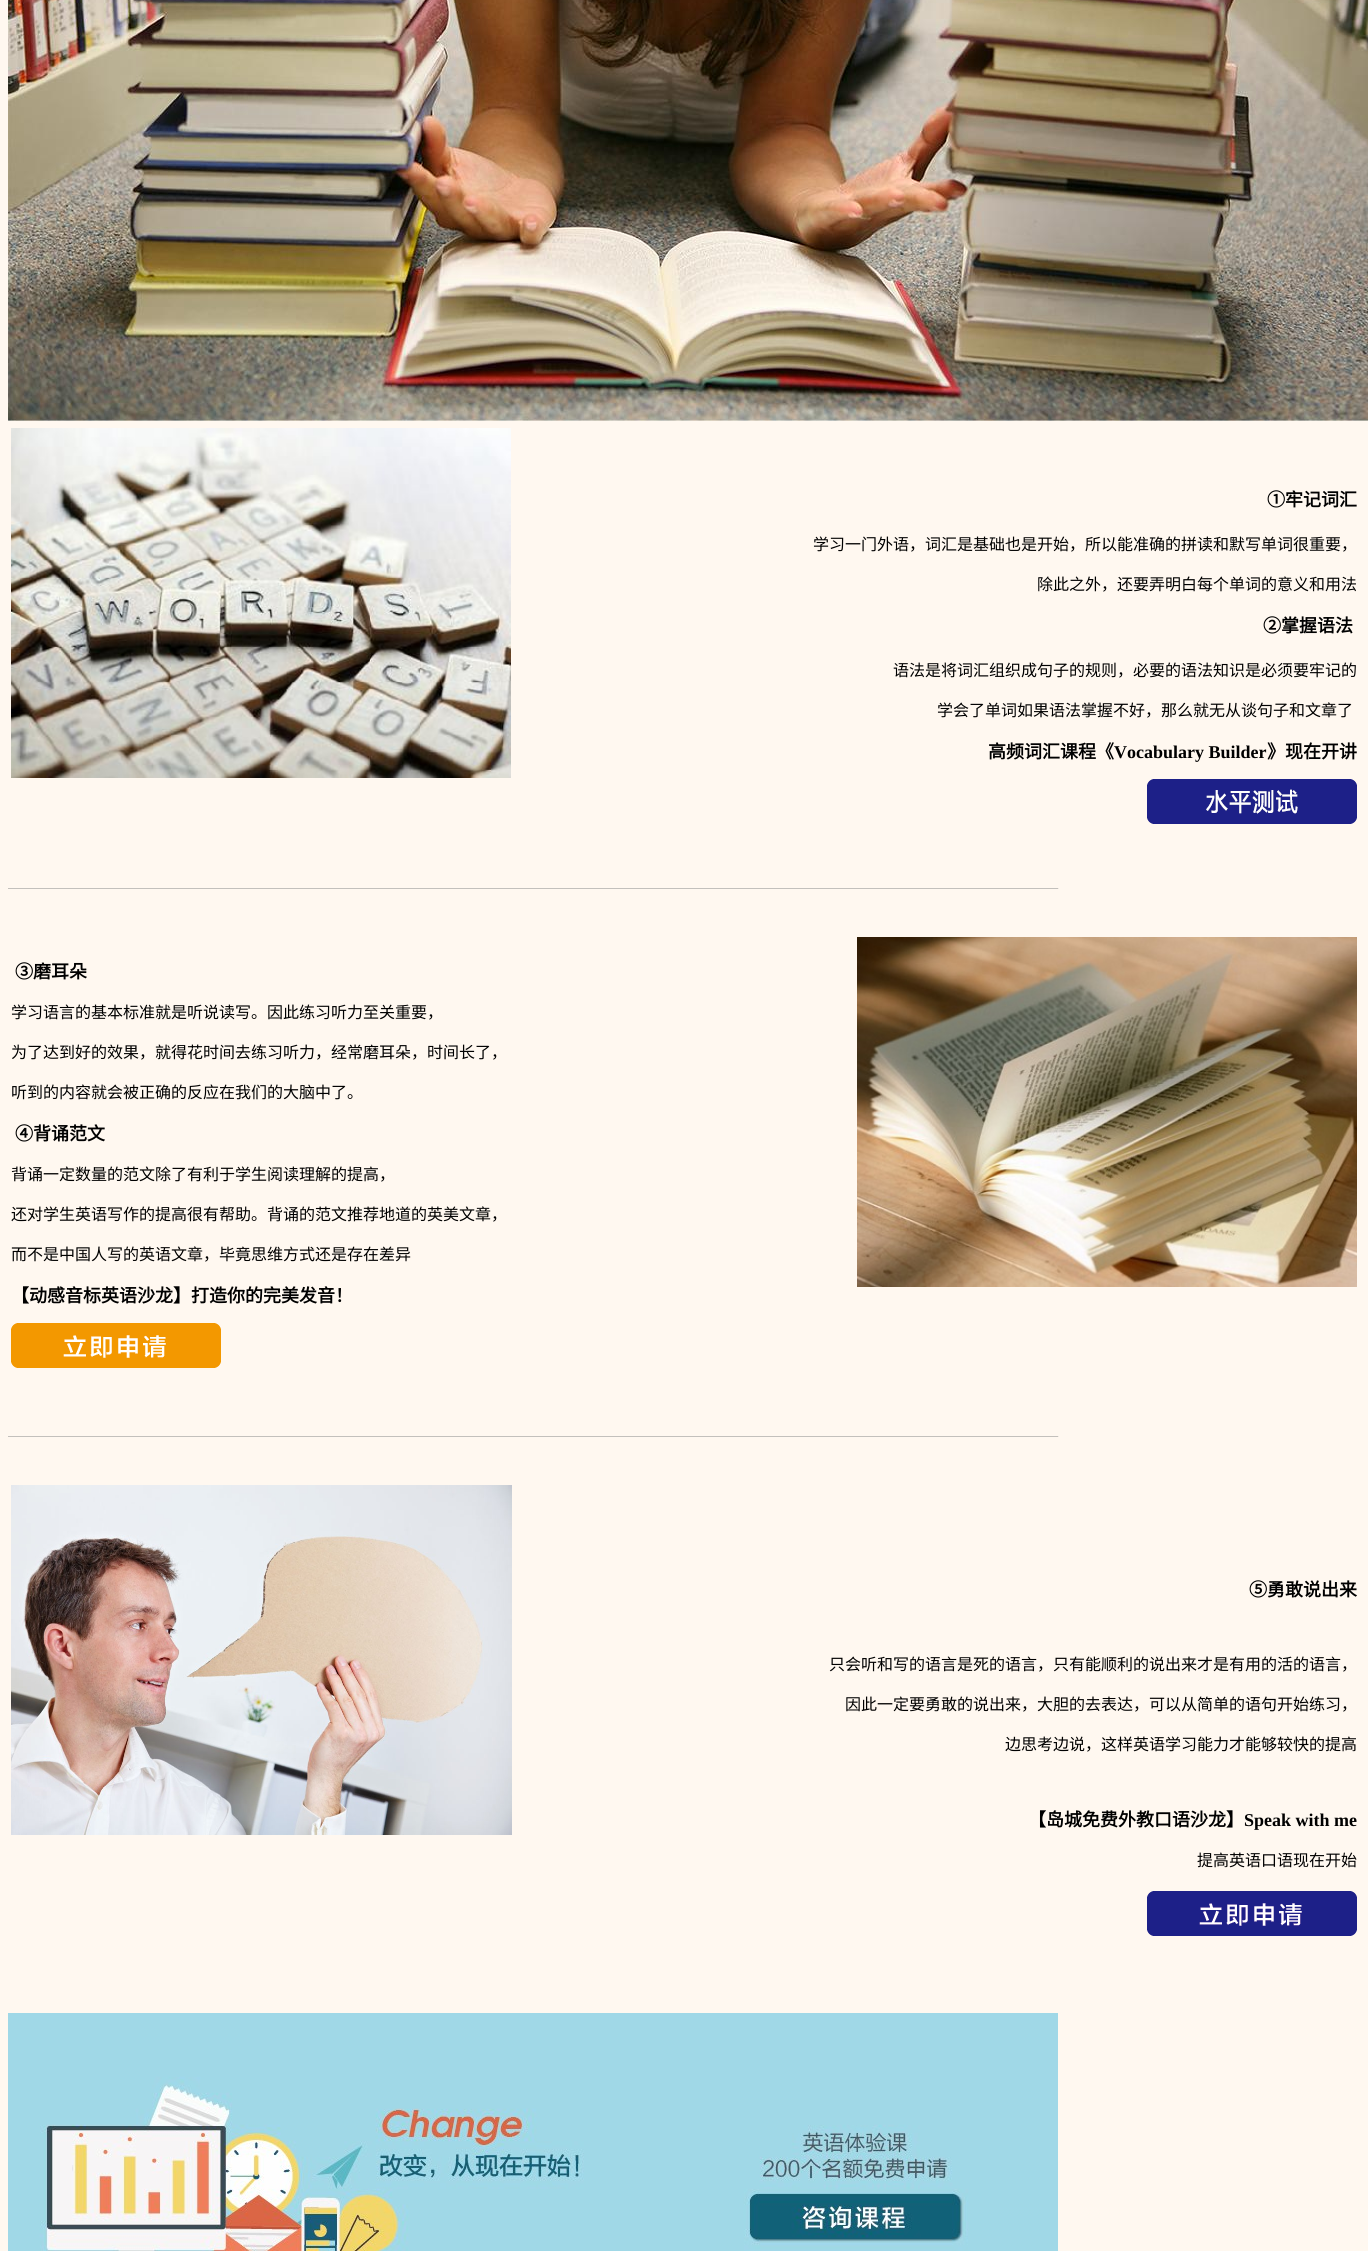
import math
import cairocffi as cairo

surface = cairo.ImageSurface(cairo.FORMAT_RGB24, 1368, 2251)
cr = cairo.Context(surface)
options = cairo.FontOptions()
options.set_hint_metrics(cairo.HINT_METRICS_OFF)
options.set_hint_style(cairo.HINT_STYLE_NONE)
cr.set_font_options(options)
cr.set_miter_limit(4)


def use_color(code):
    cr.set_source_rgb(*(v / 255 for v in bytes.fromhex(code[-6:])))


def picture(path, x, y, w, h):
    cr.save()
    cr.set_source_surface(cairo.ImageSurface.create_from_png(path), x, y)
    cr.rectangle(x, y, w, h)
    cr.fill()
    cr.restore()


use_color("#fff8f0")
cr.paint()
picture("img1.png", 8, 0, 1360, 421)
picture("img2.png", 11, 428, 500, 350)
cr.select_font_face("Noto Sans CJK SC", cairo.FONT_SLANT_NORMAL, cairo.FONT_WEIGHT_BOLD)
cr.set_font_size(18)
use_color("#000000")
cr.move_to(1267, 506)
cr.show_text("①牢记词汇")
cr.select_font_face("Noto Sans CJK SC")
cr.set_font_size(16)
cr.move_to(813, 550)
cr.show_text("学习一门外语，词汇是基础也是开始，所以能准确的拼读和默写单词很重要，")
cr.move_to(1037, 590)
cr.show_text("除此之外，还要弄明白每个单词的意义和用法")
cr.select_font_face("Noto Sans CJK SC", cairo.FONT_SLANT_NORMAL, cairo.FONT_WEIGHT_BOLD)
cr.set_font_size(18)
cr.move_to(1263, 632)
cr.show_text("②掌握语法")
cr.select_font_face("Noto Sans CJK SC")
cr.set_font_size(16)
cr.move_to(893, 676)
cr.show_text("语法是将词汇组织成句子的规则，必要的语法知识是必须要牢记的")
cr.move_to(937, 716)
cr.show_text("学会了单词如果语法掌握不好，那么就无从谈句子和文章了")
cr.select_font_face("Noto Sans CJK SC", cairo.FONT_SLANT_NORMAL, cairo.FONT_WEIGHT_BOLD)
cr.set_font_size(18)
cr.move_to(988, 758)
cr.show_text("高频词汇课程《")
cr.select_font_face("Liberation Serif", cairo.FONT_SLANT_NORMAL, cairo.FONT_WEIGHT_BOLD)
cr.move_to(1114, 758)
cr.show_text("Vocabulary Builder")
cr.select_font_face("Noto Sans CJK SC", cairo.FONT_SLANT_NORMAL, cairo.FONT_WEIGHT_BOLD)
cr.move_to(1267, 758)
cr.show_text("》现在开讲")
picture("img3.png", 1147, 779, 210, 45)
picture("img4.png", 8, 888, 1051, 1)
cr.move_to(15, 978)
cr.show_text("③磨耳朵")
cr.select_font_face("Noto Sans CJK SC")
cr.set_font_size(16)
cr.move_to(11, 1018)
cr.show_text("学习语言的基本标准就是听说读写。因此练习听力至关重要，")
cr.move_to(11, 1058)
cr.show_text("为了达到好的效果，就得花时间去练习听力，经常磨耳朵，时间长了，")
cr.move_to(11, 1098)
cr.show_text("听到的内容就会被正确的反应在我们的大脑中了。")
cr.select_font_face("Noto Sans CJK SC", cairo.FONT_SLANT_NORMAL, cairo.FONT_WEIGHT_BOLD)
cr.set_font_size(18)
cr.move_to(15, 1140)
cr.show_text("④背诵范文")
cr.select_font_face("Noto Sans CJK SC")
cr.set_font_size(16)
cr.move_to(11, 1180)
cr.show_text("背诵一定数量的范文除了有利于学生阅读理解的提高，")
cr.move_to(11, 1220)
cr.show_text("还对学生英语写作的提高很有帮助。背诵的范文推荐地道的英美文章，")
cr.move_to(11, 1260)
cr.show_text("而不是中国人写的英语文章，毕竟思维方式还是存在差异")
cr.select_font_face("Noto Sans CJK SC", cairo.FONT_SLANT_NORMAL, cairo.FONT_WEIGHT_BOLD)
cr.set_font_size(18)
cr.move_to(11, 1302)
cr.show_text("【动感音标英语沙龙】打造你的完美发音！")
picture("img5.png", 11, 1323, 210, 45)
picture("img6.png", 857, 937, 500, 350)
picture("img4.png", 8, 1436, 1051, 1)
picture("img7.png", 11, 1485, 501, 350)
cr.move_to(1249, 1596)
cr.show_text("⑤勇敢说出来")
cr.select_font_face("Noto Sans CJK SC")
cr.set_font_size(16)
cr.move_to(829, 1670)
cr.show_text("只会听和写的语言是死的语言，只有能顺利的说出来才是有用的活的语言，")
cr.move_to(845, 1710)
cr.show_text("因此一定要勇敢的说出来，大胆的去表达，可以从简单的语句开始练习，")
cr.move_to(1005, 1750)
cr.show_text("边思考边说，这样英语学习能力才能够较快的提高")
cr.select_font_face("Noto Sans CJK SC", cairo.FONT_SLANT_NORMAL, cairo.FONT_WEIGHT_BOLD)
cr.set_font_size(18)
cr.move_to(1028, 1826)
cr.show_text("【岛城免费外教口语沙龙】")
cr.select_font_face("Liberation Serif", cairo.FONT_SLANT_NORMAL, cairo.FONT_WEIGHT_BOLD)
cr.move_to(1244, 1826)
cr.show_text("Speak with me")
cr.select_font_face("Noto Sans CJK SC")
cr.set_font_size(16)
cr.move_to(1197, 1866)
cr.show_text("提高英语口语现在开始")
picture("img8.png", 1147, 1891, 210, 45)
picture("img9.png", 8, 2013, 1050, 238)
surface.write_to_png("result.png")
